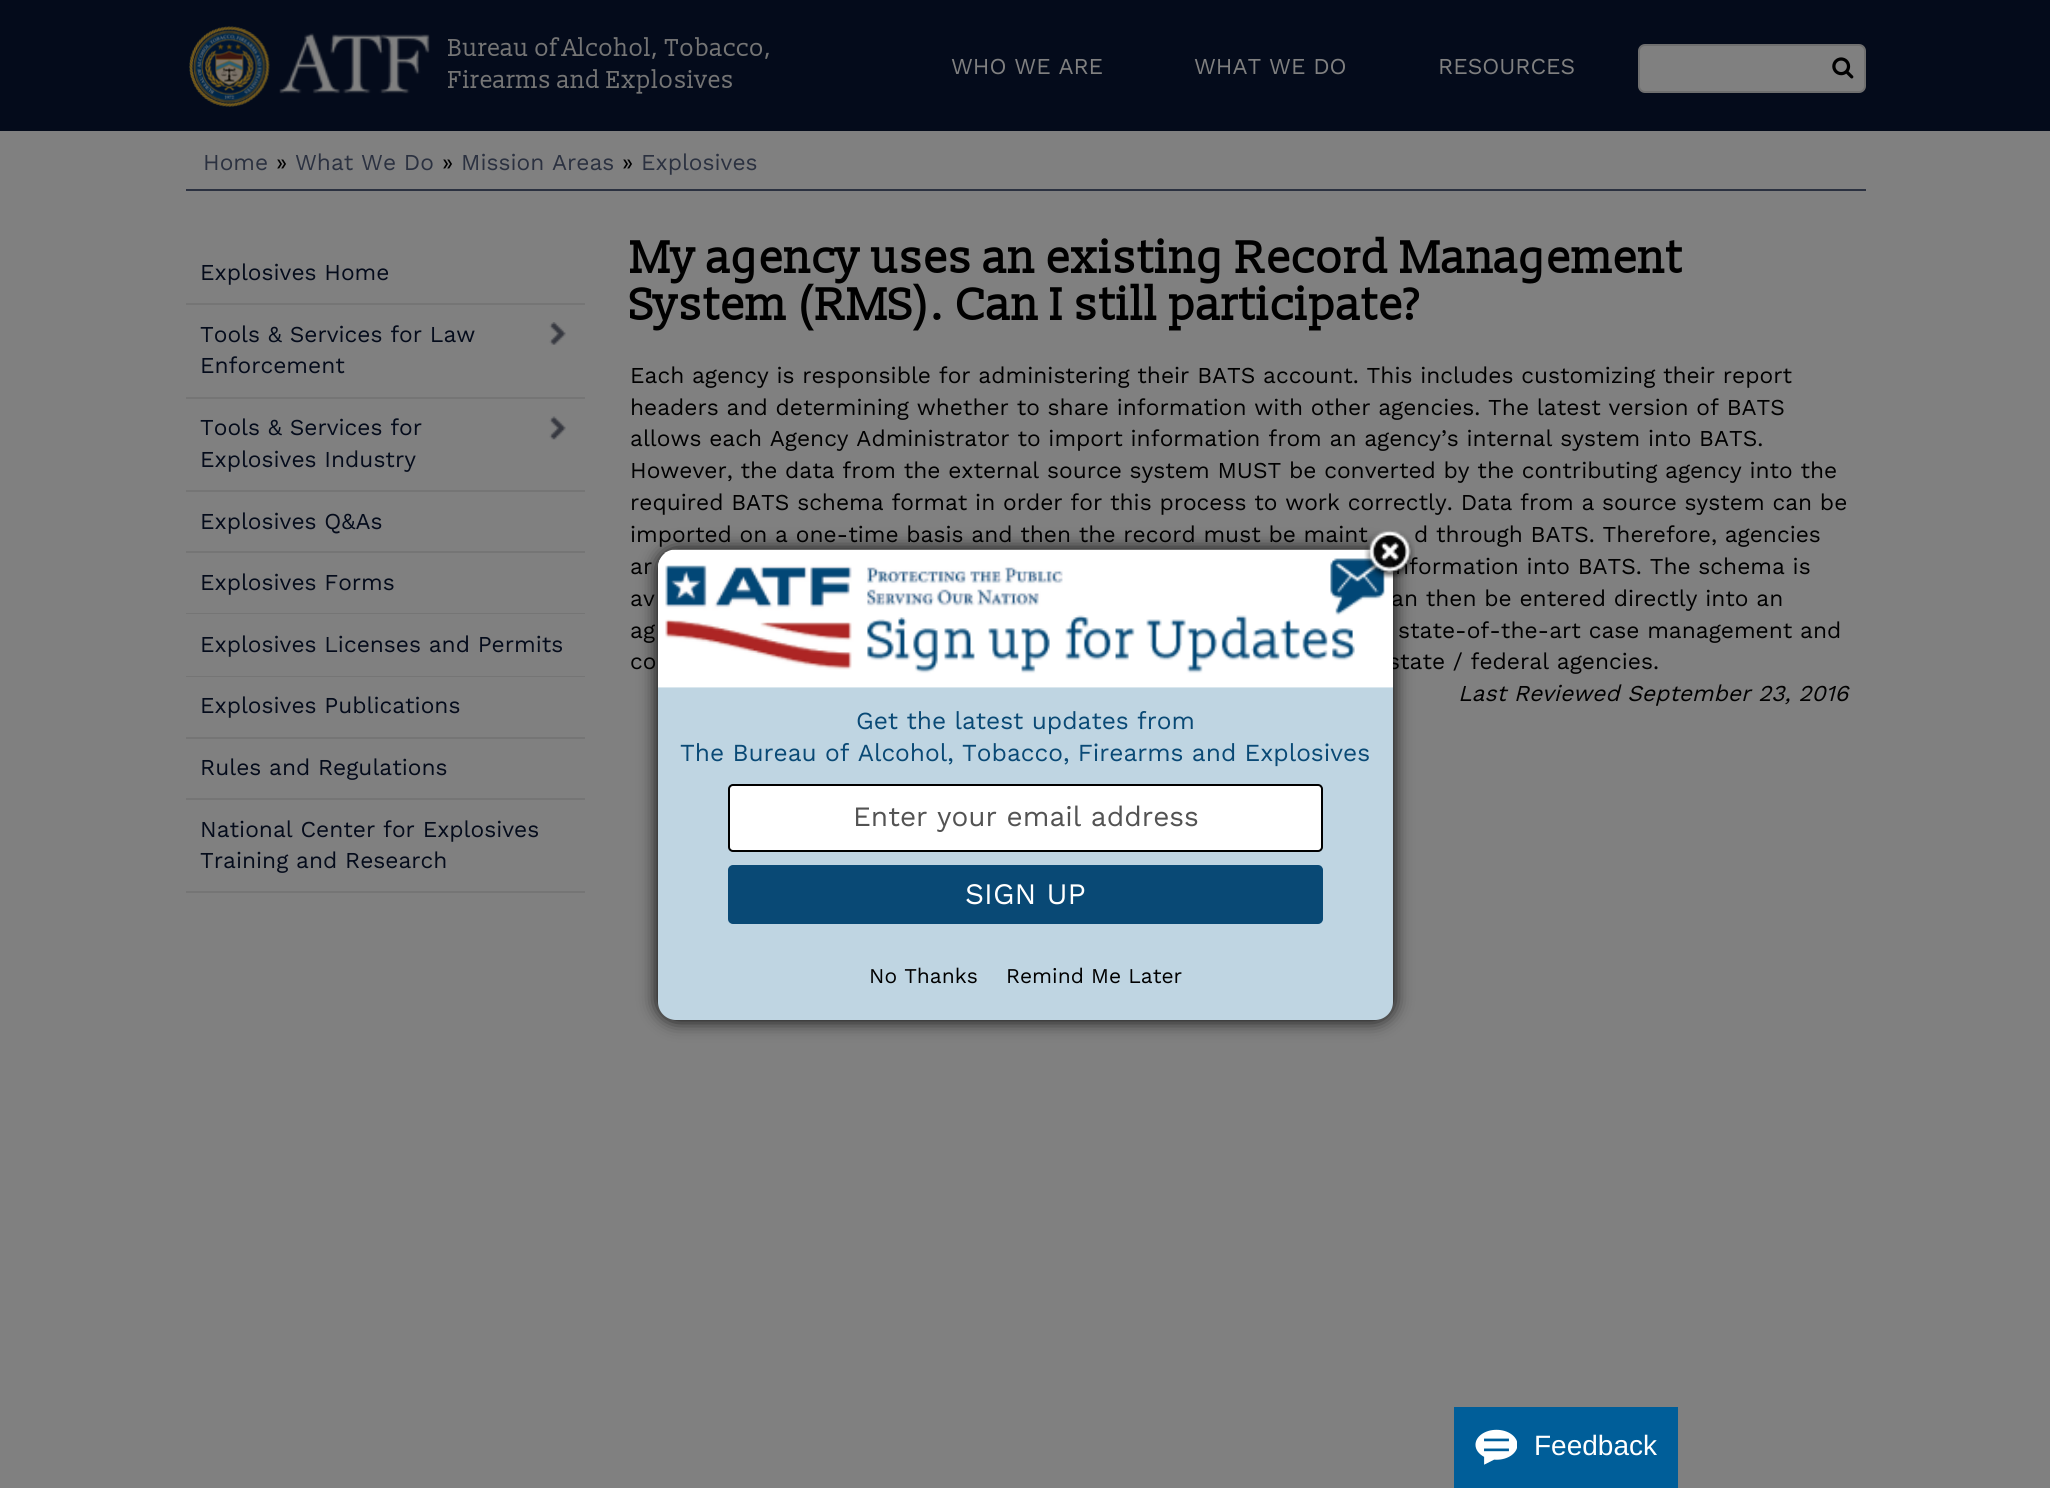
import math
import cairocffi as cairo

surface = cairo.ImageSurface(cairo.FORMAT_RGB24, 2050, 1488)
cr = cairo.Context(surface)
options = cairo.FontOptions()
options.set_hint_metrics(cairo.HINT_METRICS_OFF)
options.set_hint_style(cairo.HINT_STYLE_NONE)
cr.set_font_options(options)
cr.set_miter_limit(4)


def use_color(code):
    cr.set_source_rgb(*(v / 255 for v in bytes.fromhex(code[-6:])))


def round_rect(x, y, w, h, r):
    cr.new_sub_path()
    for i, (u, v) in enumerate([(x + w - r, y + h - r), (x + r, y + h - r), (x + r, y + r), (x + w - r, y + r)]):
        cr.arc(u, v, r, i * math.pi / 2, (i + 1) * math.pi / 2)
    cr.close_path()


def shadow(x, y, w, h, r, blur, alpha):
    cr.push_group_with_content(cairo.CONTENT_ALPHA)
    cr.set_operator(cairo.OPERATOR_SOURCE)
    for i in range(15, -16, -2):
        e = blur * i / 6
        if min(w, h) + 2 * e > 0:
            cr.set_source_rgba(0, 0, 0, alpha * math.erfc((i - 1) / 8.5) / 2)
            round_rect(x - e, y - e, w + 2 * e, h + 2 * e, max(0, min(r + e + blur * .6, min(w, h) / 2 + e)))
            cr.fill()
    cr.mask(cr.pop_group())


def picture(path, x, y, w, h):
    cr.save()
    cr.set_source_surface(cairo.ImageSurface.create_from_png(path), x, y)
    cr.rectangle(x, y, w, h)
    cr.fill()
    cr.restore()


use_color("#808080")
cr.paint()
use_color("#040b1b")
cr.rectangle(0, 0, 2050, 131)
cr.fill()
picture("img1.png", 189, 26, 81, 81)
picture("img2.png", 279, 33, 151, 61)
cr.select_font_face("Slabo 13px")
cr.set_font_size(24.5)
use_color("#757575")
cr.move_to(448, 56)
cr.show_text("Bureau of Alcohol, Tobacco,")
cr.move_to(448, 88)
cr.show_text("Firearms and Explosives")
use_color("#808080")
round_rect(1639, 45, 226, 47, 6)
cr.fill_preserve()
use_color("#6f6f6f")
cr.stroke()
picture("img3.png", 1832, 57, 22, 22)
cr.select_font_face("Work Sans")
cr.set_font_size(22.75)
use_color("#808080")
cr.move_to(951, 74)
cr.show_text("WHO WE ARE")
cr.move_to(1194, 74)
cr.show_text("WHAT WE DO")
cr.move_to(1438, 74)
cr.show_text("RESOURCES")
use_color("#2b3140")
cr.rectangle(186, 189, 1680, 2)
cr.fill()
cr.move_to(203, 170)
cr.show_text("Home")
use_color("#000000")
cr.move_to(276, 170)
cr.show_text("»")
use_color("#2b3140")
cr.move_to(295, 170)
cr.show_text("What We Do")
use_color("#000000")
cr.move_to(442, 170)
cr.show_text("»")
use_color("#2b3140")
cr.move_to(461, 170)
cr.show_text("Mission Areas")
use_color("#000000")
cr.move_to(622, 170)
cr.show_text("»")
use_color("#2b3140")
cr.move_to(641, 170)
cr.show_text("Explosives")
use_color("#757575")
cr.rectangle(186, 303, 399, 2)
cr.fill()
use_color("#040b1b")
cr.move_to(200, 280)
cr.show_text("Explosives Home")
use_color("#757575")
cr.rectangle(186, 397, 399, 2)
cr.fill()
use_color("#040b1b")
cr.move_to(200, 342)
cr.show_text("Tools & Services for Law")
cr.move_to(200, 373)
cr.show_text("Enforcement")
picture("img4.png", 549, 322, 17, 23)
use_color("#757575")
cr.rectangle(186, 490, 399, 2)
cr.fill()
use_color("#040b1b")
cr.move_to(200, 435)
cr.show_text("Tools & Services for")
cr.move_to(200, 467)
cr.show_text("Explosives Industry")
picture("img5.png", 549, 416, 17, 24)
use_color("#757575")
cr.rectangle(186, 551, 399, 2)
cr.fill()
use_color("#040b1b")
cr.move_to(200, 529)
cr.show_text("Explosives Q&As")
use_color("#757575")
cr.rectangle(186, 613, 399, 1)
cr.fill()
use_color("#040b1b")
cr.move_to(200, 590)
cr.show_text("Explosives Forms")
use_color("#757575")
cr.rectangle(186, 676, 399, 1)
cr.fill()
use_color("#040b1b")
cr.move_to(200, 652)
cr.show_text("Explosives Licenses and Permits")
use_color("#757575")
cr.rectangle(186, 737, 399, 2)
cr.fill()
use_color("#040b1b")
cr.move_to(200, 713)
cr.show_text("Explosives Publications")
use_color("#757575")
cr.rectangle(186, 798, 399, 2)
cr.fill()
use_color("#040b1b")
cr.move_to(200, 775)
cr.show_text("Rules and Regulations")
use_color("#757575")
cr.rectangle(186, 891, 399, 2)
cr.fill()
use_color("#040b1b")
cr.move_to(200, 837)
cr.show_text("National Center for Explosives")
cr.move_to(200, 868)
cr.show_text("Training and Research")
cr.select_font_face("Slabo 13px", cairo.FONT_SLANT_NORMAL, cairo.FONT_WEIGHT_BOLD)
cr.set_font_size(45.5)
use_color("#000000")
cr.move_to(630, 273)
cr.show_text("My agency uses an existing Record Management")
cr.move_to(630, 320)
cr.show_text("System (RMS). Can I still participate?")
cr.select_font_face("Work Sans")
cr.set_font_size(22.75)
cr.move_to(630, 383)
cr.show_text("Each agency is responsible for administering their BATS account. This includes customizing their report")
cr.move_to(630, 415)
cr.show_text("headers and determining whether to share information with other agencies. The latest version of BATS")
cr.move_to(630, 446)
cr.show_text("allows each Agency Administrator to import information from an agency’s internal system into BATS.")
cr.move_to(630, 478)
cr.show_text("However, the data from the external source system MUST be converted by the contributing agency into the")
cr.move_to(630, 510)
cr.show_text("required BATS schema format in order for this process to work correctly. Data from a source system can be")
cr.move_to(630, 542)
cr.show_text("imported on a one-time basis and then the record must be maint")
cr.move_to(1414, 542)
cr.show_text("d through BATS. Therefore, agencies")
cr.move_to(630, 574)
cr.show_text("ar")
cr.move_to(1395, 574)
cr.show_text("nformation into BATS. The schema is")
cr.move_to(630, 606)
cr.show_text("av")
cr.move_to(1391, 606)
cr.show_text("an then be entered directly into an")
cr.move_to(630, 638)
cr.show_text("ag")
cr.move_to(1398, 638)
cr.show_text("state-of-the-art case management and")
cr.move_to(630, 669)
cr.show_text("co")
cr.move_to(1388, 669)
cr.show_text("state / federal agencies.")
cr.select_font_face("Work Sans", cairo.FONT_SLANT_ITALIC)
cr.move_to(1458, 701)
cr.show_text("Last Reviewed September 23, 2016")
use_color("#000000")
shadow(658, 550, 735, 470, 18, 9, 1)
use_color("#bfd5e2")
round_rect(658, 550, 735, 470, 18)
cr.fill()
picture("img7.png", 658, 549, 735, 139)
picture("img6.png", 1364, 530, 51, 49)
cr.select_font_face("Work Sans")
cr.set_font_size(24.5)
use_color("#094975")
cr.move_to(856, 729)
cr.show_text("Get the latest updates from")
cr.move_to(680, 761)
cr.show_text("The Bureau of Alcohol, Tobacco, Firearms and Explosives")
use_color("#ffffff")
round_rect(729, 785, 593, 66, 4)
cr.fill_preserve()
use_color("#000000")
cr.stroke()
cr.set_font_size(28)
use_color("#535353")
cr.move_to(853, 826)
cr.show_text("Enter your email address")
use_color("#094975")
round_rect(729, 866, 593, 57, 4)
cr.fill_preserve()
cr.stroke()
cr.set_font_size(29.75)
use_color("#ffffff")
cr.move_to(965, 904)
cr.show_text("SIGN UP")
cr.set_font_size(21)
use_color("#000000")
cr.move_to(869, 983)
cr.show_text("No Thanks")
cr.move_to(1006, 983)
cr.show_text("Remind Me Later")
use_color("#005e99")
cr.rectangle(1454, 1407, 224, 81)
cr.fill()
picture("img8.png", 1475, 1429, 42, 36)
cr.select_font_face("Liberation Sans")
cr.set_font_size(28)
use_color("#ffffff")
cr.move_to(1534, 1455)
cr.show_text("Feedback")
surface.write_to_png("result.png")
